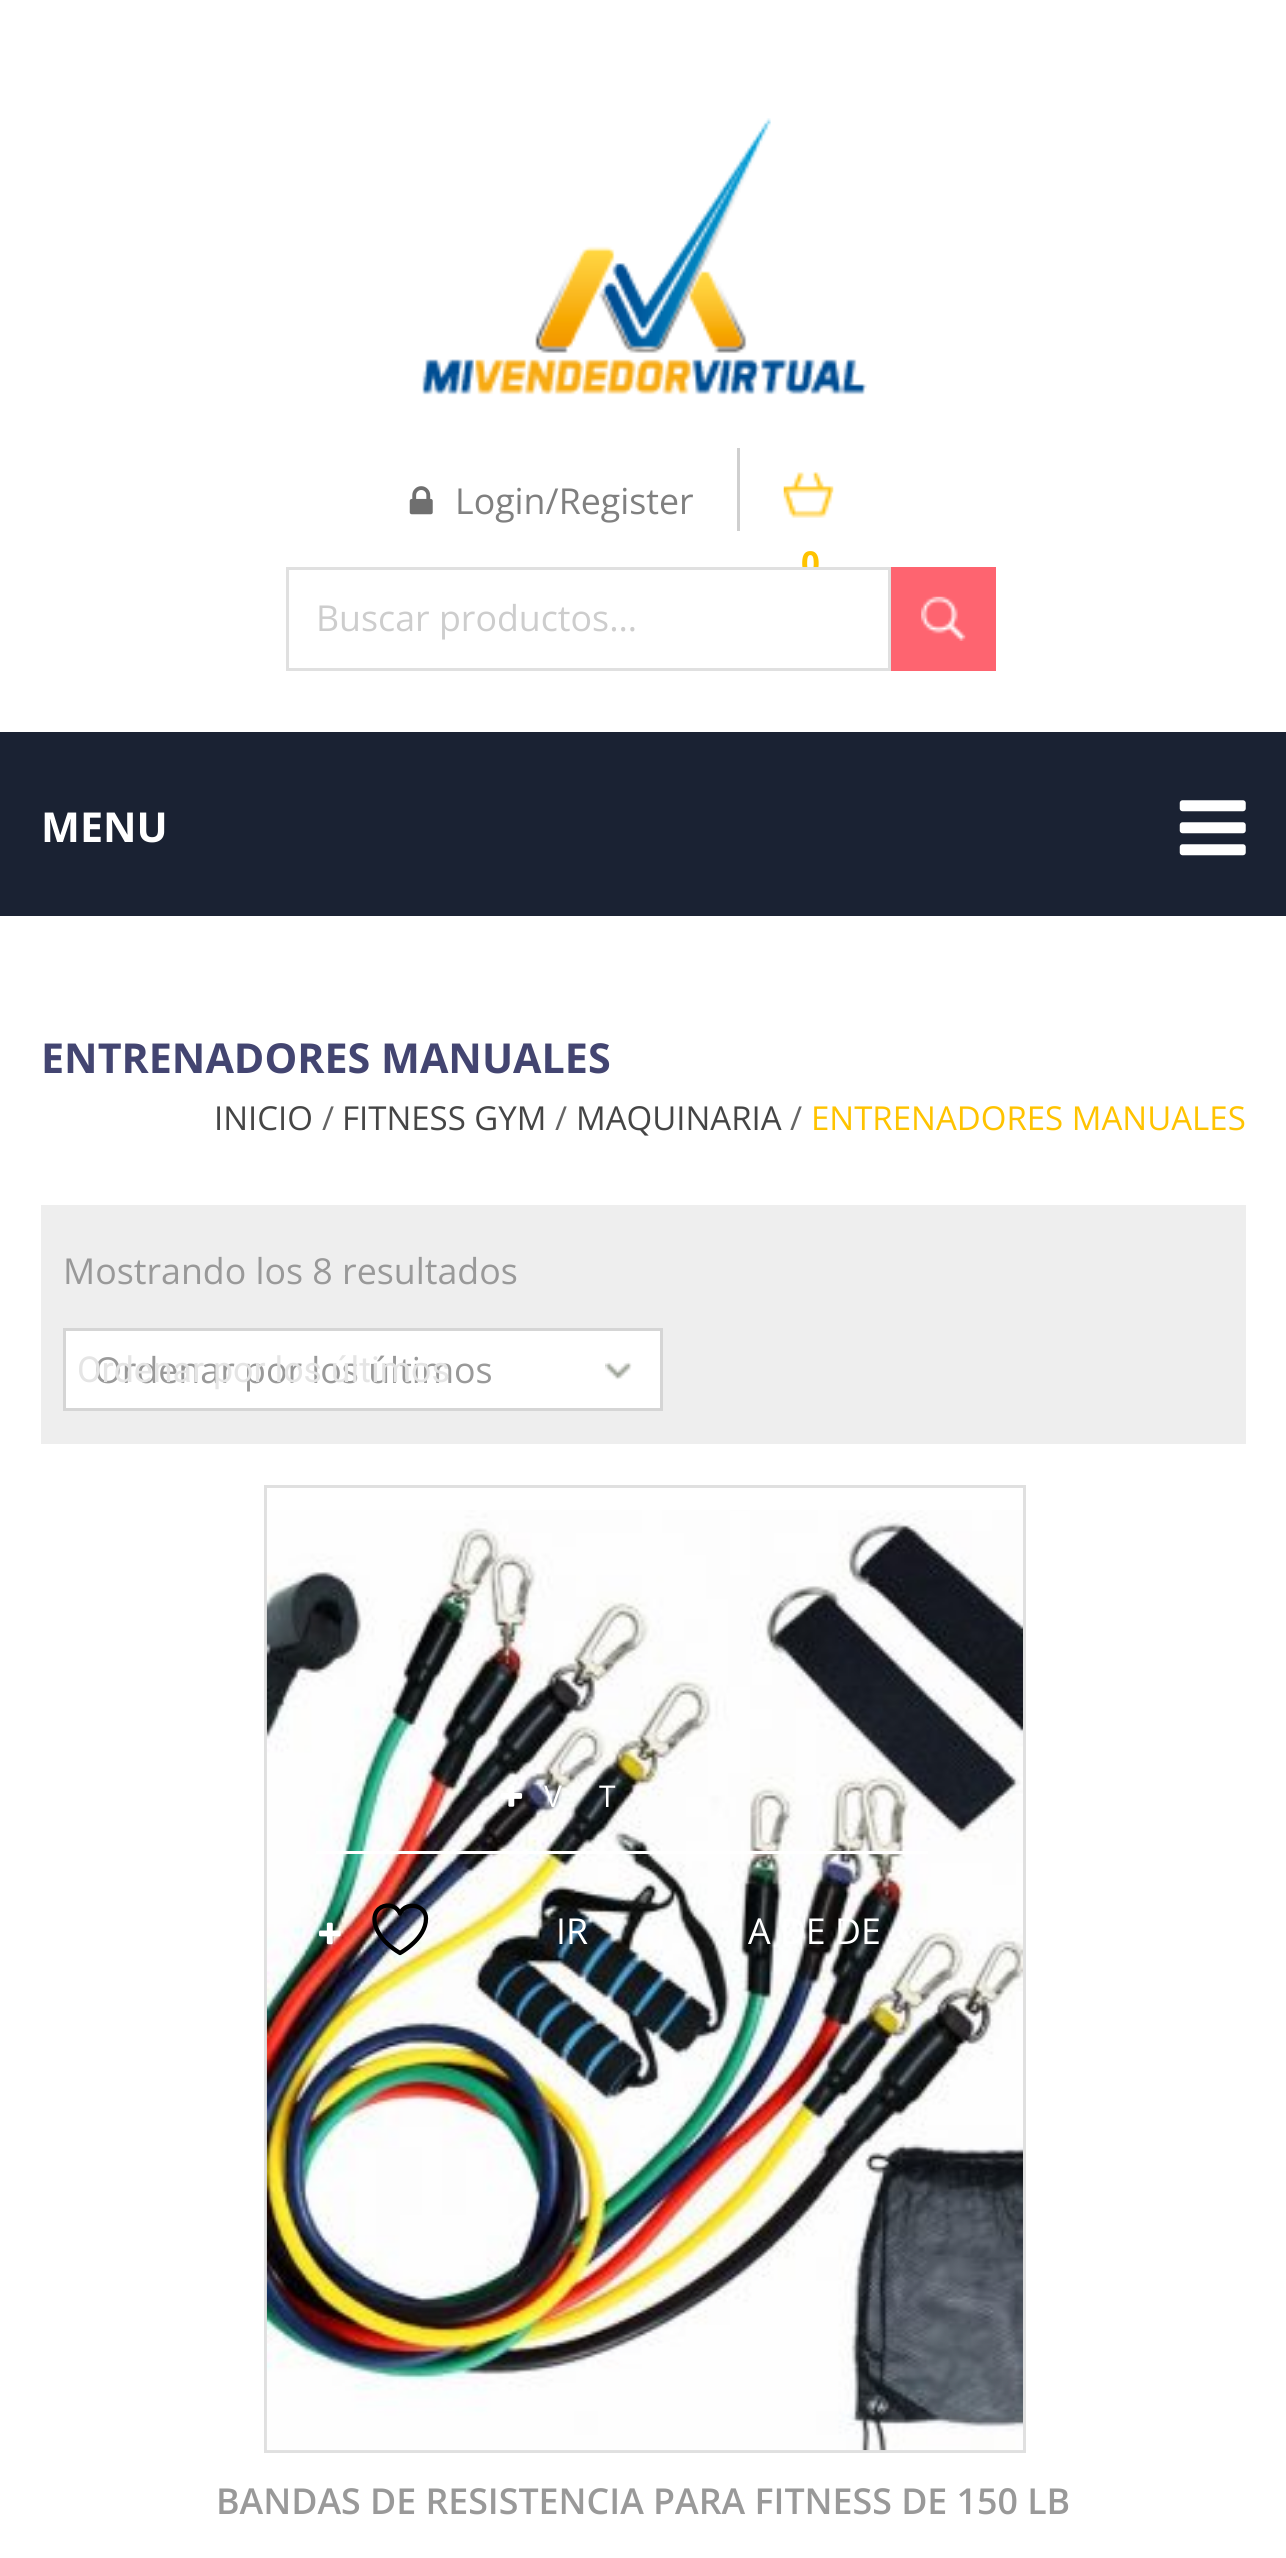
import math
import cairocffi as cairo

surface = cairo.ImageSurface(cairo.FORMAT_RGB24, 1286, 2558)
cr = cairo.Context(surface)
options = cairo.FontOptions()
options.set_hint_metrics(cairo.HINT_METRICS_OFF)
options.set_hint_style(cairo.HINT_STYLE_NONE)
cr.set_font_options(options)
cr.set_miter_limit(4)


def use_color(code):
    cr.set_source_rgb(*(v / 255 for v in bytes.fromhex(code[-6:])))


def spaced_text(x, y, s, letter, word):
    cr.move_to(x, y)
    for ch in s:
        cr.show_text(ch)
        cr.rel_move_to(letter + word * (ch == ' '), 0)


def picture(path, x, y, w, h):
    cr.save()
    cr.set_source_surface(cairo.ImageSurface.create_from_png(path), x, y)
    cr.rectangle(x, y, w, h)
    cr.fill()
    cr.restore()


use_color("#ffffff")
cr.paint()
picture("img1.png", 422, 118, 445, 277)
use_color("#cfcfcf")
cr.rectangle(737, 448, 3, 83)
cr.fill()
picture("img2.png", 409, 486, 24, 29)
cr.select_font_face("Open Sans")
cr.set_font_size(35.75)
use_color("#808080")
cr.move_to(455, 514)
cr.show_text("Login/Register")
picture("img3.png", 783, 472, 51, 46)
cr.select_font_face("Open Sans", cairo.FONT_SLANT_NORMAL, cairo.FONT_WEIGHT_BOLD)
cr.set_font_size(33)
use_color("#ffc300")
cr.move_to(801, 575)
cr.show_text("0")
use_color("#1a2233")
cr.rectangle(0, 732, 1286, 184)
cr.fill()
use_color("#ffffff")
cr.rectangle(803, 570, 15, 6)
cr.fill()
cr.rectangle(287.5, 568.5, 602, 101)
use_color("#e0e0e0")
cr.set_line_width(3)
cr.stroke()
cr.select_font_face("Open Sans")
cr.set_font_size(35.75)
use_color("#cdcdcd")
cr.move_to(316, 631)
cr.show_text("Buscar productos…")
use_color("#fe6470")
cr.rectangle(891, 567, 105, 104)
cr.fill()
picture("img4.png", 921, 596, 45, 45)
cr.select_font_face("Open Sans", cairo.FONT_SLANT_NORMAL, cairo.FONT_WEIGHT_BOLD)
cr.set_font_size(41.25)
use_color("#ffffff")
cr.move_to(41, 842)
cr.show_text("MENU")
picture("img5.png", 1179, 800, 67, 56)
use_color("#434571")
cr.move_to(41, 1073)
cr.show_text("ENTRENADORES MANUALES")
cr.select_font_face("Open Sans")
cr.set_font_size(33)
use_color("#454545")
cr.move_to(214, 1130)
cr.show_text("INICIO")
use_color("#666666")
cr.move_to(322, 1130)
cr.show_text("/")
use_color("#454545")
cr.move_to(342, 1130)
cr.show_text("FITNESS GYM")
use_color("#666666")
cr.move_to(555, 1130)
cr.show_text("/")
use_color("#454545")
cr.move_to(576, 1130)
cr.show_text("MAQUINARIA")
use_color("#666666")
cr.move_to(790, 1130)
cr.show_text("/")
use_color("#ffc300")
cr.move_to(811, 1130)
cr.show_text("ENTRENADORES MANUALES")
use_color("#eeeeee")
cr.rectangle(41, 1205, 1205, 239)
cr.fill()
cr.set_font_size(35.75)
use_color("#999999")
cr.move_to(63, 1284)
cr.show_text("Mostrando los 8 resultados")
use_color("#ffffff")
cr.rectangle(64.5, 1329.5, 597, 80)
cr.fill_preserve()
use_color("#d5d5d5")
cr.stroke()
use_color("#999999")
cr.move_to(94, 1383)
cr.show_text("Ordenar por los últimos")
cr.select_font_face("Roboto")
use_color("#e5e5e5")
cr.move_to(77, 1382)
cr.show_text("Ordenar por los últimos")
picture("img6.png", 605, 1361, 27, 19)
cr.rectangle(265.5, 1486.5, 759, 965)
use_color("#e0e0e0")
cr.stroke()
picture("img7.png", 266, 1510, 757, 941)
picture("img8.png", 500, 1785, 23, 22)
cr.select_font_face("Open Sans")
cr.set_font_size(30)
use_color("#ffffff")
spaced_text(544, 1807, "V", 4, 0)
spaced_text(599, 1807, "T", 4, 0)
cr.rectangle(316, 1851, 612, 3)
cr.fill()
picture("img9.png", 319, 1922, 22, 23)
cr.new_path()
cr.move_to(426, 1918.5)
cr.curve_to(426, 1904.5, 405.5, 1901, 400, 1913.5)
cr.curve_to(393, 1897.5, 364, 1906.5, 378.5, 1932.5)
cr.curve_to(383, 1941, 391.5, 1948, 400, 1953)
cr.curve_to(400, 1953, 426, 1939, 426, 1918.5)
cr.close_path()
use_color("#000000")
cr.set_line_width(4.3)
cr.set_line_cap(cairo.LINE_CAP_ROUND)
cr.set_line_join(cairo.LINE_JOIN_ROUND)
cr.stroke()
cr.set_font_size(35.75)
use_color("#ffffff")
cr.move_to(556, 1944)
cr.show_text("IR")
cr.move_to(748, 1944)
cr.show_text("A DE DE")
cr.select_font_face("Open Sans SemiBold")
use_color("#999999")
cr.move_to(216, 2514)
cr.show_text("BANDAS DE RESISTENCIA PARA FITNESS DE 150 LB")
surface.write_to_png("result.png")
